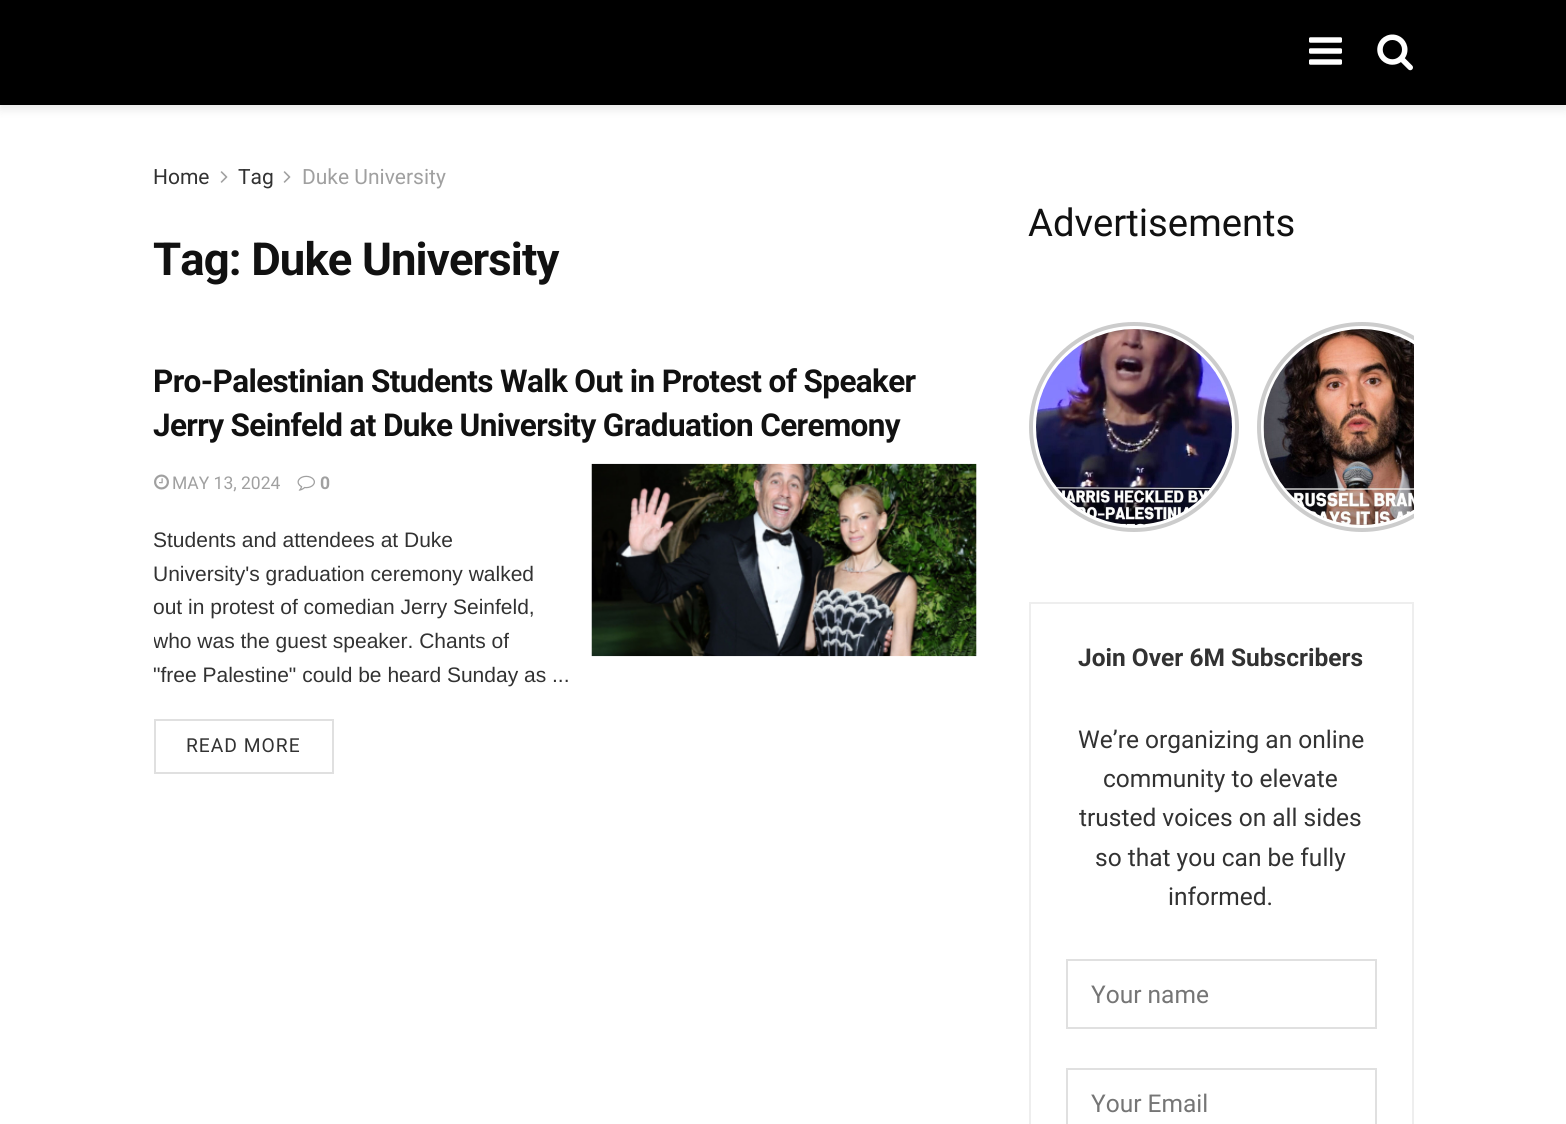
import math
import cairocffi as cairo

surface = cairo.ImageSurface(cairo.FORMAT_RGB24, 1566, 1124)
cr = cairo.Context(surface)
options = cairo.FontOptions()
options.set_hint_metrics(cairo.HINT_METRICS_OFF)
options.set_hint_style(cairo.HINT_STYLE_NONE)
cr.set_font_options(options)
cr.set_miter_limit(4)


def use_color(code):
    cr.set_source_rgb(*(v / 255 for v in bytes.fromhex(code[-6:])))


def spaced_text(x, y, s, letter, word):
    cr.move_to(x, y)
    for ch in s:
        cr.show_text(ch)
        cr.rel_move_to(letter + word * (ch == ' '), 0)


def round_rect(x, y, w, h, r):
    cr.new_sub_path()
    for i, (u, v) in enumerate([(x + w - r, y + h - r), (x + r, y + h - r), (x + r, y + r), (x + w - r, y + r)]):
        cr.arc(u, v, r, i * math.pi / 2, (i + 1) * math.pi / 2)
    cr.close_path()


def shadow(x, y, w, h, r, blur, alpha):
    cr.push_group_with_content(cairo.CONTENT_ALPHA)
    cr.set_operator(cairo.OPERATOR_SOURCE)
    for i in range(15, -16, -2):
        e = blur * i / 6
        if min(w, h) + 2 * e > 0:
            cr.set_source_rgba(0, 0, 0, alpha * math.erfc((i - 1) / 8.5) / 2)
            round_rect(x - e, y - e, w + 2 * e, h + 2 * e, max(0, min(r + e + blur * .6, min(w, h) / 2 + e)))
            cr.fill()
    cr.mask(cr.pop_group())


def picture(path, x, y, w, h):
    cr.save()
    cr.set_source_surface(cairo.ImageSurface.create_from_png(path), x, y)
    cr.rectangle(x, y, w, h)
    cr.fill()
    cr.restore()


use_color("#ffffff")
cr.paint()
use_color("#000000")
shadow(0, 4, 1566, 105, 0, 5, 0.1)
use_color("#000000")
cr.rectangle(0, 0, 1566, 105)
cr.fill()
picture("img1.png", 1309, 37, 33, 28)
picture("img2.png", 1377, 34, 36, 37)
cr.select_font_face("Roboto")
cr.set_font_size(21)
use_color("#323232")
cr.move_to(153, 184)
cr.show_text("Home")
picture("img3.png", 220, 171, 8, 12)
cr.move_to(238, 184)
cr.show_text("Tag")
picture("img3.png", 283, 171, 8, 12)
use_color("#a0a0a0")
cr.move_to(302, 184)
cr.show_text("Duke University")
cr.select_font_face("Roboto", cairo.FONT_SLANT_NORMAL, cairo.FONT_WEIGHT_BOLD)
cr.set_font_size(45.5)
use_color("#111111")
spaced_text(153, 275, "Tag: Duke University", -0.9, 0)
cr.set_font_size(31.5)
spaced_text(153, 392, "Pro-Palestinian Students Walk Out in Protest of Speaker", -0.63, 0)
spaced_text(153, 436, "Jerry Seinfeld at Duke University Graduation Ceremony", -0.63, 0)
picture("img4.png", 154, 474, 15, 16)
cr.select_font_face("Roboto")
cr.set_font_size(17.5)
use_color("#a0a0a0")
cr.move_to(172, 489)
cr.show_text("MAY 13, 2024")
picture("img5.png", 297, 475, 18, 16)
cr.select_font_face("Roboto", cairo.FONT_SLANT_NORMAL, cairo.FONT_WEIGHT_BOLD)
cr.move_to(320, 489)
cr.show_text("0")
cr.select_font_face("Liberation Sans")
cr.set_font_size(21)
use_color("#323232")
cr.move_to(153, 547)
cr.show_text("Students and attendees at Duke")
cr.move_to(153, 581)
cr.show_text("University's graduation ceremony walked")
cr.move_to(153, 614)
cr.show_text("out in protest of comedian Jerry Seinfeld,")
cr.save()
cr.rectangle(154, 359, 823, 415)
cr.clip()
cr.move_to(153, 648)
cr.show_text("who was the guest speaker. Chants of")
cr.restore()
cr.move_to(153, 682)
cr.show_text("\"free Palestine\" could be heard Sunday as ...")
cr.rectangle(155, 720, 178, 53)
use_color("#e0e0e0")
cr.stroke()
cr.select_font_face("Roboto")
cr.set_font_size(19.25)
use_color("#323232")
spaced_text(186, 752, "READ MORE", 1, 0)
use_color("#f7f7f7")
cr.rectangle(976, 464, 1, 192)
cr.fill()
picture("img6.png", 591, 463, 386, 194)
cr.set_font_size(38.25)
use_color("#111111")
cr.move_to(1028, 236)
cr.show_text("Advertisements")
cr.new_path()
cr.arc(1134, 427, 103, 0, 2 * math.pi)
use_color("#cccccc")
cr.set_line_width(4)
cr.stroke()
picture("img7.png", 1036, 329, 196, 196)
cr.save()
cr.rectangle(1029, 322, 385, 210)
cr.clip()
cr.arc(1362, 427, 103, 0, 2 * math.pi)
cr.stroke()
cr.restore()
picture("img8.png", 1263, 329, 151, 196)
cr.rectangle(1030, 603, 383, 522)
use_color("#eeeeee")
cr.set_line_width(2)
cr.stroke()
cr.select_font_face("Roboto", cairo.FONT_SLANT_NORMAL, cairo.FONT_WEIGHT_BOLD)
cr.set_font_size(24.5)
use_color("#323232")
cr.move_to(1078, 666)
cr.show_text("Join Over 6M Subscribers")
cr.select_font_face("Roboto")
cr.move_to(1078, 748)
cr.show_text("We’re organizing an online")
cr.move_to(1103, 787)
cr.show_text("community to elevate")
cr.move_to(1079, 826)
cr.show_text("trusted voices on all sides")
cr.move_to(1095, 866)
cr.show_text("so that you can be fully")
cr.move_to(1168, 905)
cr.show_text("informed.")
cr.rectangle(1067, 960, 309, 68)
use_color("#e0e0e0")
cr.stroke()
use_color("#757575")
cr.move_to(1091, 1003)
cr.show_text("Your name")
cr.rectangle(1067, 1069, 309, 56)
use_color("#e0e0e0")
cr.stroke()
use_color("#757575")
cr.move_to(1091, 1112)
cr.show_text("Your Email")
surface.write_to_png("result.png")
